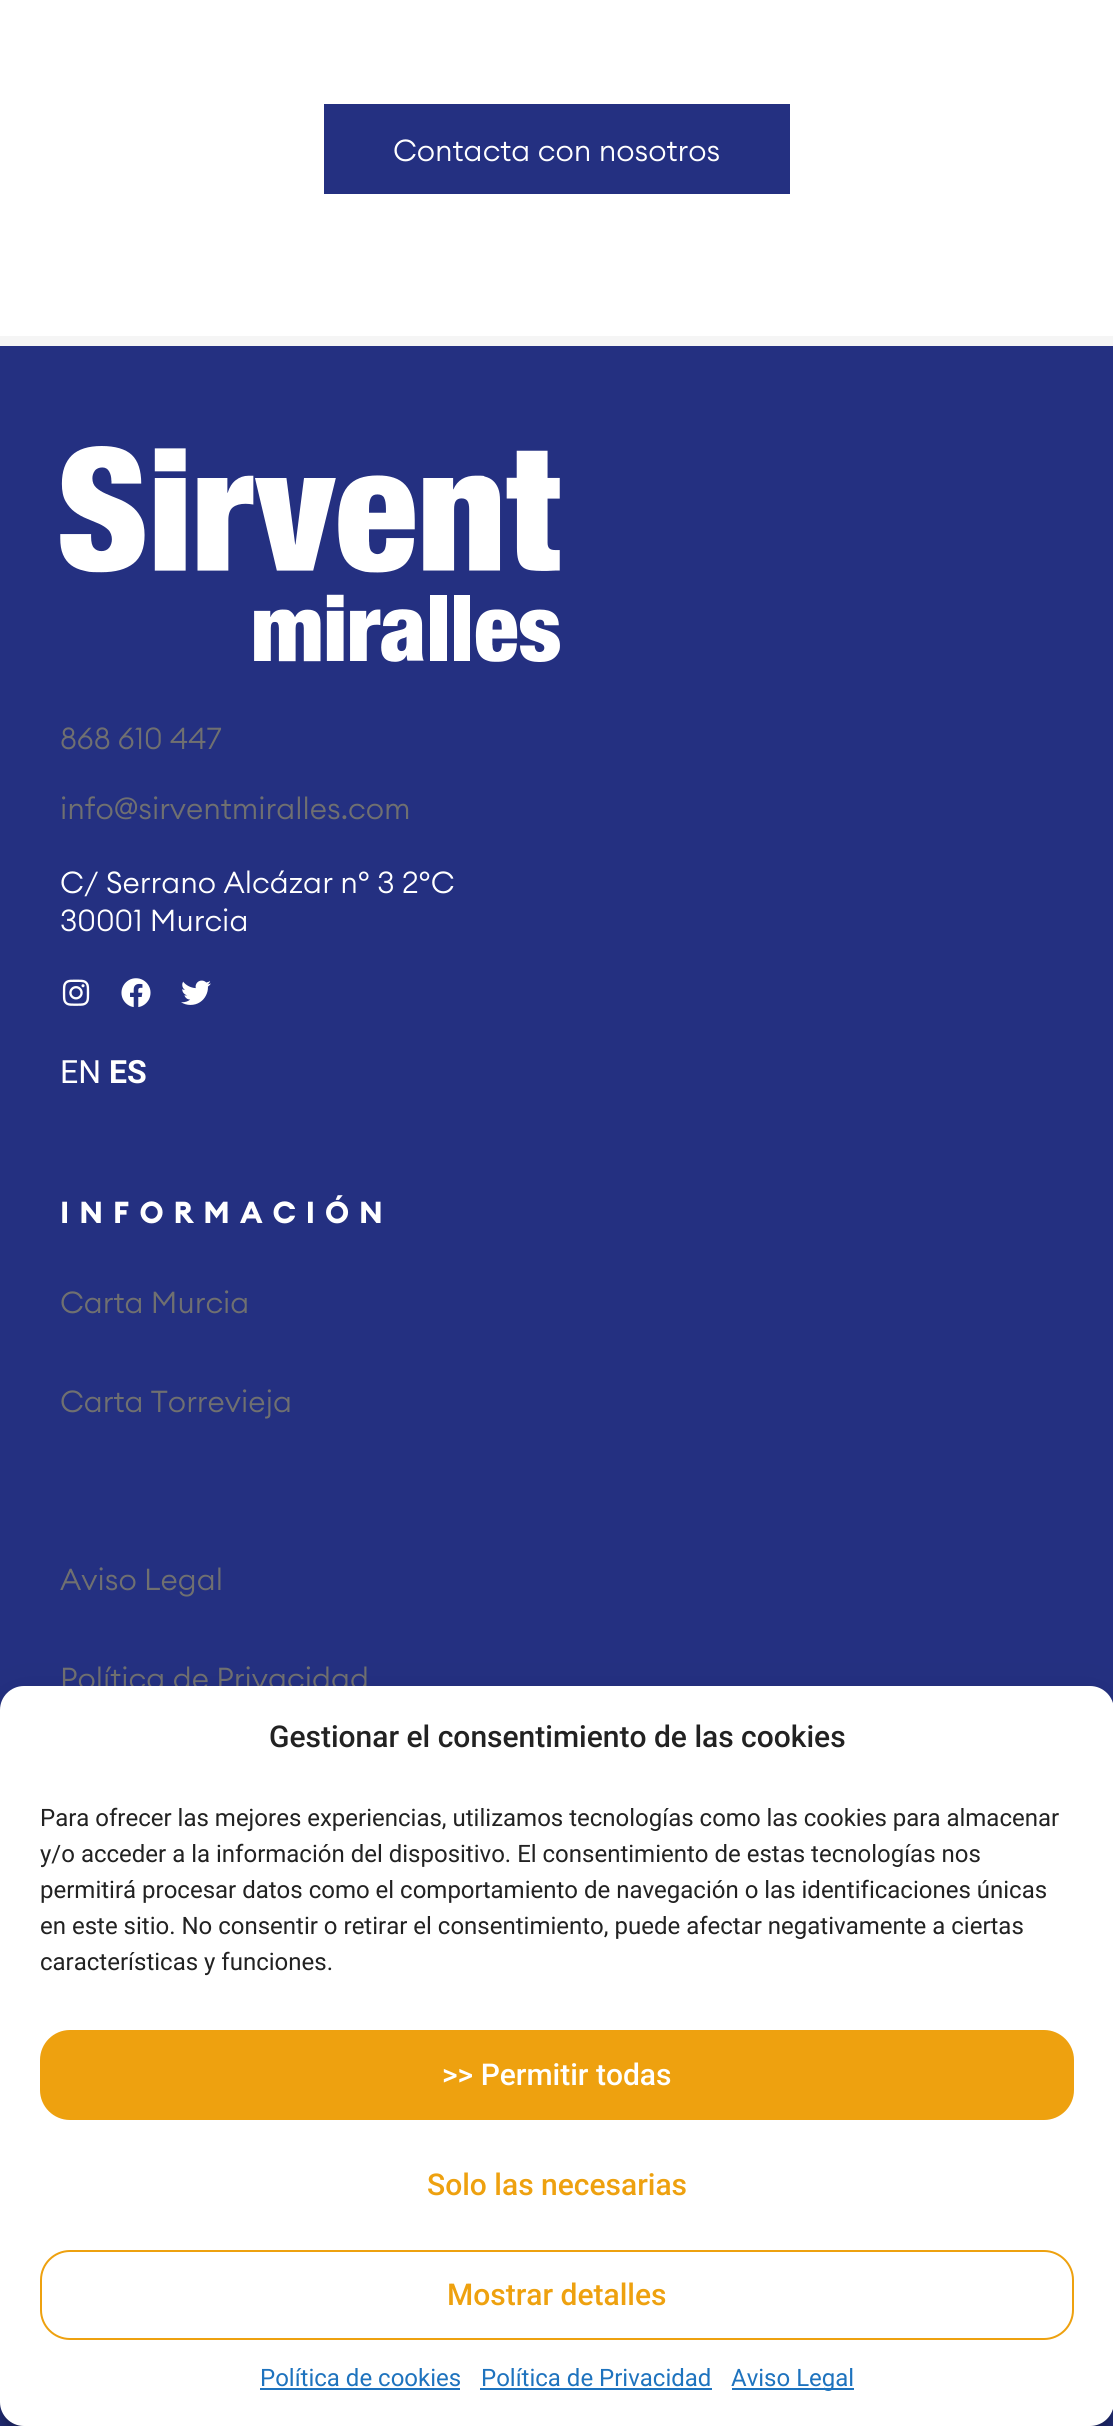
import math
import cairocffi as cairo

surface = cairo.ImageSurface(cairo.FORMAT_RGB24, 1113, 2426)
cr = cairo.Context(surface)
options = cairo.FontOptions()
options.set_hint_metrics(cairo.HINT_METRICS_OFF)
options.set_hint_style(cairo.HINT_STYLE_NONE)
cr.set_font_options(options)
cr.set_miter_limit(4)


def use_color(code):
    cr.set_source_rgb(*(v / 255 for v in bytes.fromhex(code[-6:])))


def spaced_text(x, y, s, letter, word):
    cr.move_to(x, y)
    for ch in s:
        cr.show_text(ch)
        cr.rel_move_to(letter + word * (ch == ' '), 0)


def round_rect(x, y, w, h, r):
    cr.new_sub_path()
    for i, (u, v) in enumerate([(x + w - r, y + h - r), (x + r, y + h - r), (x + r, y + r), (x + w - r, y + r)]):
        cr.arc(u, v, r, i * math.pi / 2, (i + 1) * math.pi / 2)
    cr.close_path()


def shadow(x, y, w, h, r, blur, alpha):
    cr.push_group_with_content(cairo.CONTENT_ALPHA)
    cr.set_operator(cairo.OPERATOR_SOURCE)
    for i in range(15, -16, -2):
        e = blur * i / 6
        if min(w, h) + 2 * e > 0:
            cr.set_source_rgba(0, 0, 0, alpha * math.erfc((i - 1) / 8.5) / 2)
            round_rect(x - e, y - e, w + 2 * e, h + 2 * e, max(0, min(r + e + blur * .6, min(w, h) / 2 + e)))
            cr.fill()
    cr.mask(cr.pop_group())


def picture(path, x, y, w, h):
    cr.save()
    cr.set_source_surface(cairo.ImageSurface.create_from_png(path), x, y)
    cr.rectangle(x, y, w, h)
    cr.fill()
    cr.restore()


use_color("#ffffff")
cr.paint()
use_color("#f5f5f5")
cr.rectangle(0, 336, 1113, 10)
cr.fill()
use_color("#243081")
cr.rectangle(324, 104, 466, 90)
cr.fill()
cr.select_font_face("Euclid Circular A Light")
cr.set_font_size(30)
use_color("#ffffff")
cr.move_to(393, 161)
cr.show_text("Contacta con nosotros")
use_color("#243081")
cr.rectangle(0, 346, 1113, 1364)
cr.fill()
picture("img1.png", 60, 446, 500, 216)
use_color("#707070")
cr.move_to(60, 749)
cr.show_text("868 610 447")
cr.move_to(60, 819)
cr.show_text("info@sirventmiralles.com")
use_color("#ffffff")
cr.move_to(60, 893)
cr.show_text("C/ Serrano Alcázar nº 3 2ºC")
cr.move_to(60, 931)
cr.show_text("30001 Murcia")
picture("img2.png", 62, 979, 28, 27)
picture("img3.png", 121, 978, 30, 30)
picture("img4.png", 181, 980, 30, 25)
cr.select_font_face("Roboto")
cr.set_font_size(32)
cr.move_to(60, 1083)
cr.show_text("EN")
cr.select_font_face("Roboto", cairo.FONT_SLANT_NORMAL, cairo.FONT_WEIGHT_BOLD)
cr.move_to(109, 1083)
cr.show_text("ES")
cr.select_font_face("Euclid Circular A", cairo.FONT_SLANT_NORMAL, cairo.FONT_WEIGHT_BOLD)
cr.set_font_size(30)
spaced_text(60, 1223, "INFORMACIÓN", 10, 0)
cr.select_font_face("Euclid Circular A Light")
use_color("#707070")
cr.move_to(60, 1313)
cr.show_text("Carta Murcia")
cr.move_to(60, 1412)
cr.show_text("Carta Torrevieja")
cr.move_to(60, 1590)
cr.show_text("Aviso Legal")
cr.move_to(60, 1689)
cr.show_text("Política de Privacidad")
use_color("#243081")
cr.rectangle(0, 2402, 1113, 24)
cr.fill()
use_color("#000000")
shadow(0, 1698, 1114, 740, 24, 6, 0.23)
shadow(0, 1706, 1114, 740, 24, 20, 0.19)
use_color("#ffffff")
round_rect(0, 1686, 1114, 740, 24)
cr.fill()
cr.select_font_face("Roboto Medium")
use_color("#222222")
cr.move_to(269, 1747)
cr.show_text("Gestionar el consentimiento de las cookies")
cr.select_font_face("Roboto")
cr.set_font_size(24)
cr.move_to(40, 1826)
cr.show_text("Para ofrecer las mejores experiencias, utilizamos tecnologías como las cookies para almacenar")
cr.move_to(40, 1862)
cr.show_text("y/o acceder a la información del dispositivo. El consentimiento de estas tecnologías nos")
cr.move_to(40, 1898)
cr.show_text("permitirá procesar datos como el comportamiento de navegación o las identificaciones únicas")
cr.move_to(40, 1934)
cr.show_text("en este sitio. No consentir o retirar el consentimiento, puede afectar negativamente a ciertas")
cr.move_to(40, 1970)
cr.show_text("características y funciones.")
use_color("#eea10f")
round_rect(41, 2031, 1032, 88, 29)
cr.fill_preserve()
cr.stroke()
cr.select_font_face("Roboto Medium")
cr.set_font_size(30)
use_color("#ffffff")
cr.move_to(442, 2085)
cr.show_text(">> Permitir todas")
use_color("#eea10f")
cr.move_to(427, 2195)
cr.show_text("Solo las necesarias")
round_rect(41, 2251, 1032, 88, 29)
cr.stroke()
cr.move_to(447, 2305)
cr.show_text("Mostrar detalles")
cr.select_font_face("Roboto")
cr.set_font_size(24)
use_color("#1e73be")
cr.move_to(260, 2386)
cr.show_text("Política de cookies")
cr.rectangle(260, 2388, 200, 2)
cr.fill()
cr.move_to(481, 2386)
cr.show_text("Política de Privacidad")
cr.rectangle(480, 2388, 232, 2)
cr.fill()
cr.rectangle(732, 2388, 122, 2)
cr.fill()
cr.move_to(731, 2386)
cr.show_text("Aviso Legal")
surface.write_to_png("result.png")
